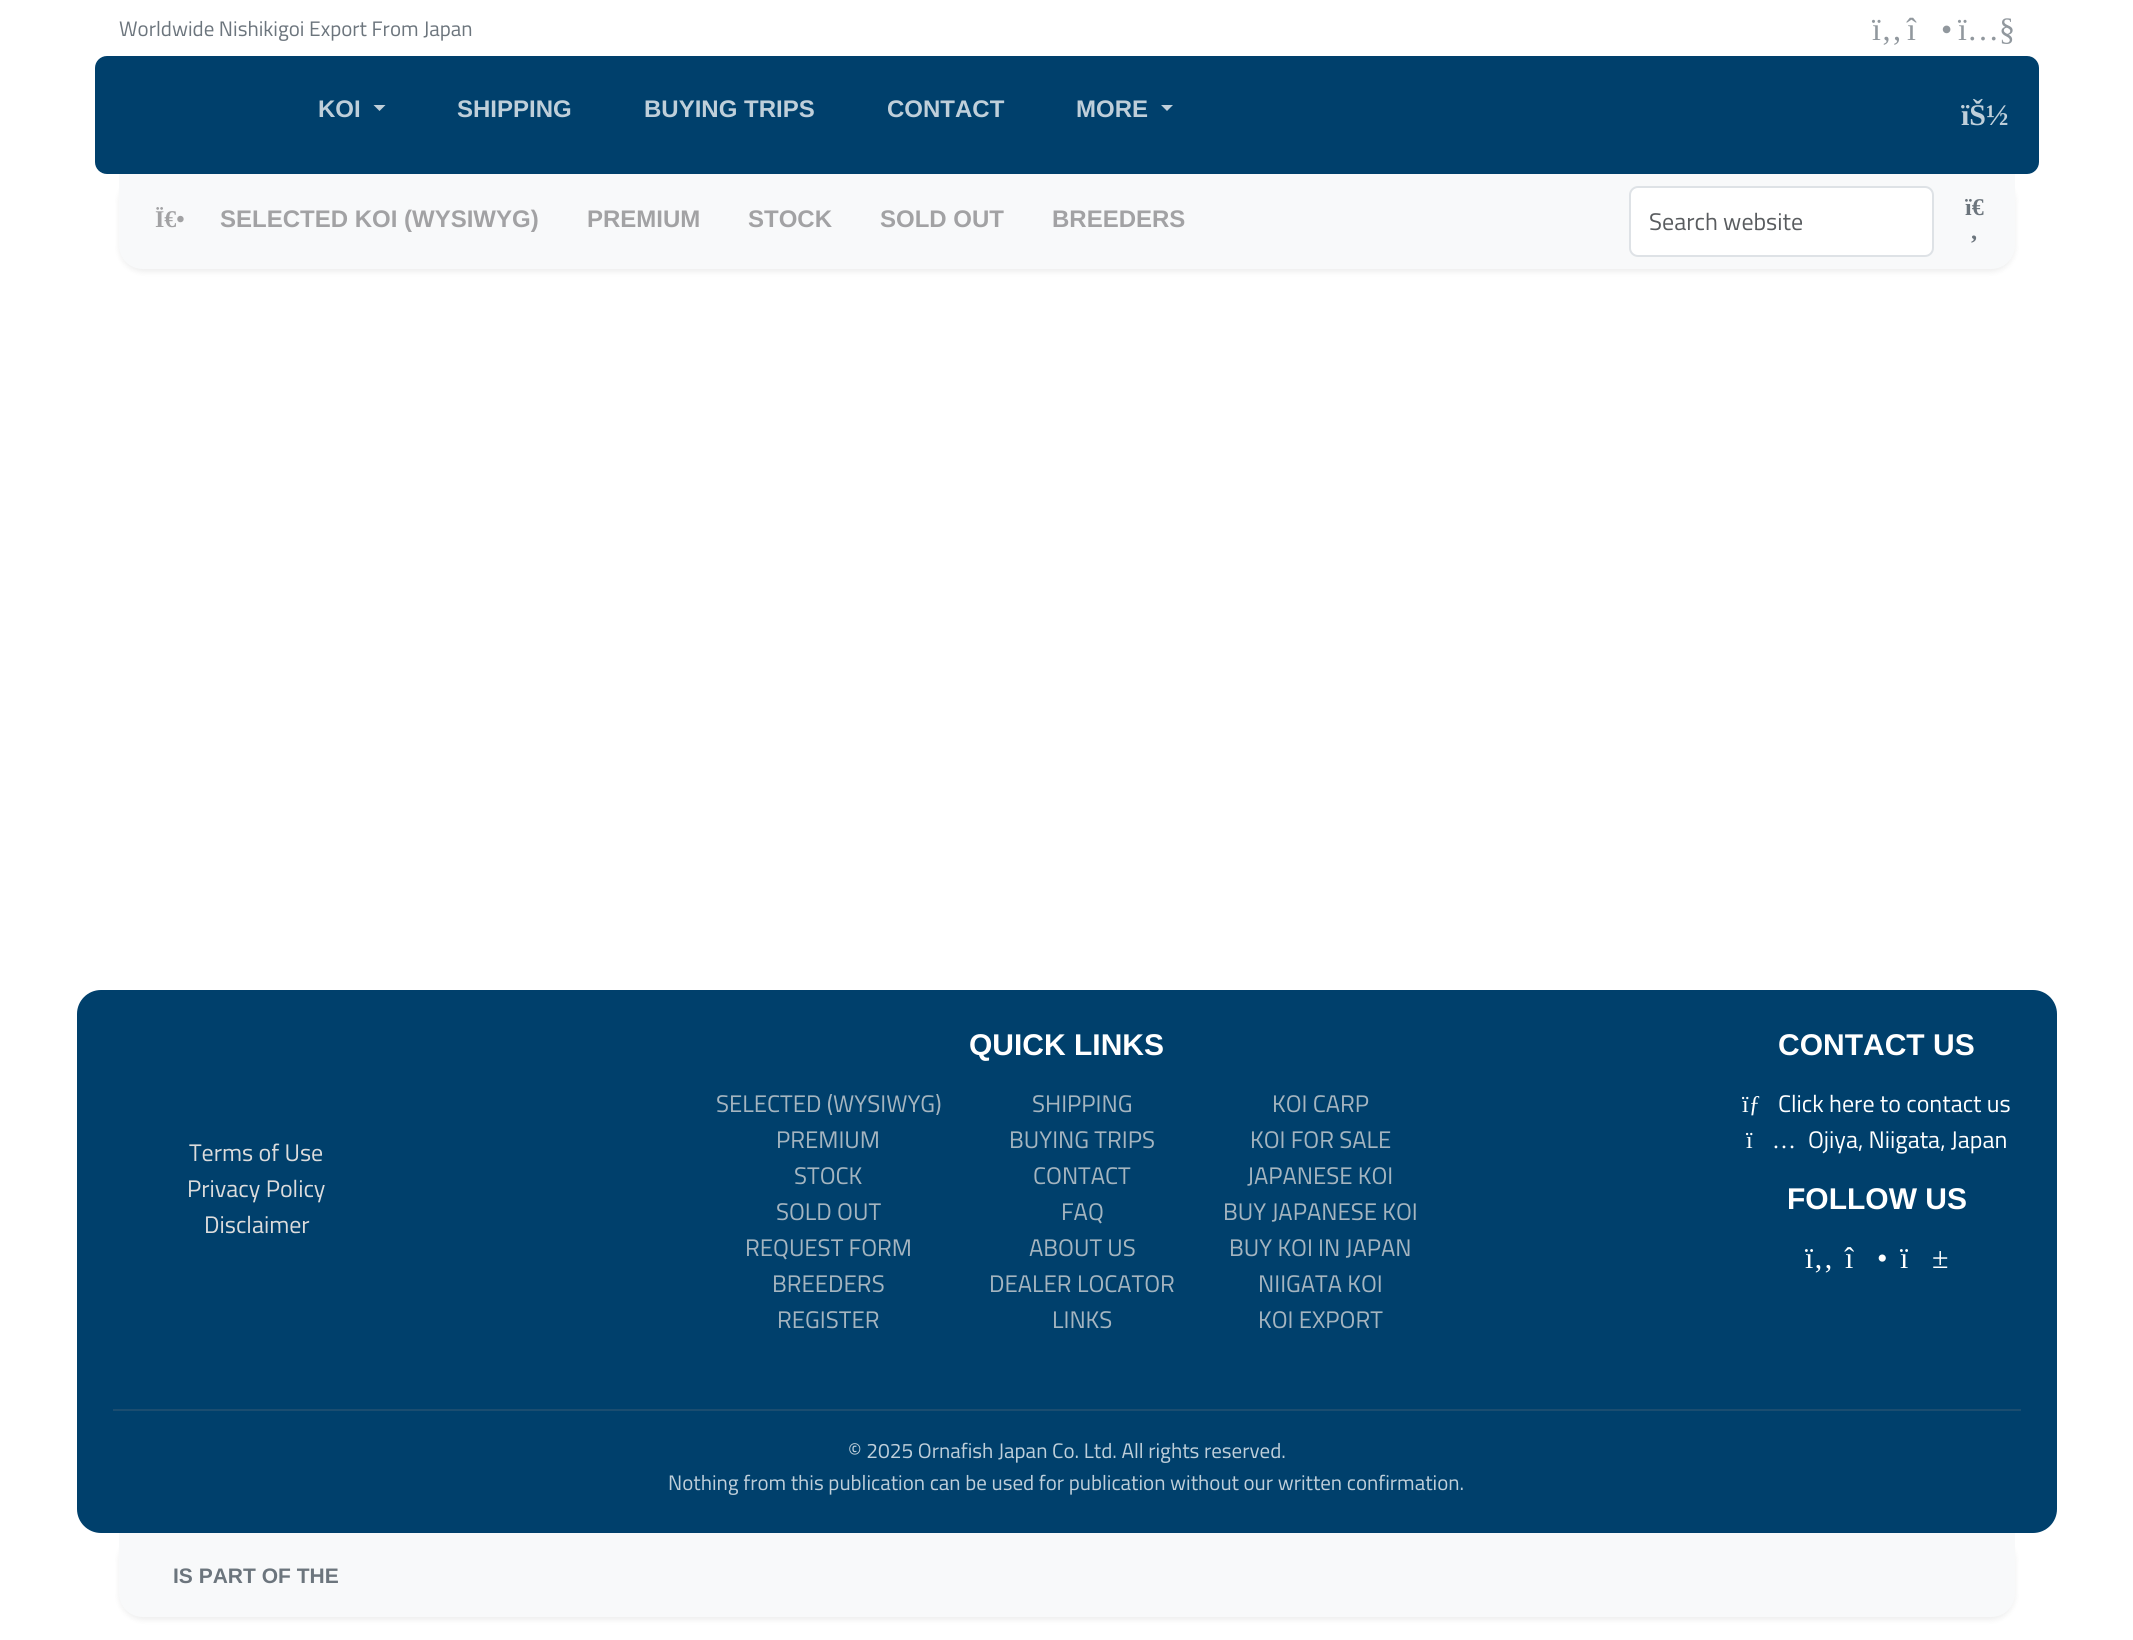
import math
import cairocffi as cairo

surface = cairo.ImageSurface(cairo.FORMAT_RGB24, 2133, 1640)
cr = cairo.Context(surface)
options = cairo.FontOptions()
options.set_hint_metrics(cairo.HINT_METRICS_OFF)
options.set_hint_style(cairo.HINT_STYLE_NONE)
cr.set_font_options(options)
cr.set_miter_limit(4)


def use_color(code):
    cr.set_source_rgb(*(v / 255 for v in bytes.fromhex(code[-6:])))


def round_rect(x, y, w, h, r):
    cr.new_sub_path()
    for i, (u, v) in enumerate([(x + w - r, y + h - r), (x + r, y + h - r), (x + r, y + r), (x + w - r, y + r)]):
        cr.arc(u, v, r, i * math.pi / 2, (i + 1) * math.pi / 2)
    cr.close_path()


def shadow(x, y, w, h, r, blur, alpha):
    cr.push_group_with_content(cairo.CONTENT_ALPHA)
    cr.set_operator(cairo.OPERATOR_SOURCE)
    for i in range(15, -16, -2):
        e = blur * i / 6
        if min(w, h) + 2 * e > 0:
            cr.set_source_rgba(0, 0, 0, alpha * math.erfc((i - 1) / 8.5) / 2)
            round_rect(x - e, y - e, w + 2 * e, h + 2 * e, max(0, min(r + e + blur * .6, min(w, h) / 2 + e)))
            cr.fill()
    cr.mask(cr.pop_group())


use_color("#ffffff")
cr.paint()
cr.select_font_face("Titillium Web")
cr.set_font_size(21)
use_color("#6c757d")
cr.move_to(119, 36)
cr.show_text("Worldwide Nishikigoi Export From Japan")
cr.select_font_face("Liberation Serif")
cr.set_font_size(32)
use_color("#91989e")
cr.move_to(1872, 40)
cr.show_text("ï‚‚")
cr.move_to(1907, 40)
cr.show_text("î")
cr.move_to(1941, 40)
cr.show_text("•")
cr.move_to(1958, 40)
cr.show_text("ï…§")
use_color("#000000")
shadow(119, 177, 1896, 95, 24, 3, 0.07)
use_color("#00406c")
round_rect(95, 56, 1944, 118, 12)
cr.fill()
cr.select_font_face("Liberation Sans", cairo.FONT_SLANT_NORMAL, cairo.FONT_WEIGHT_BOLD)
cr.set_font_size(24)
use_color("#bfcfda")
cr.move_to(318, 117)
cr.show_text("KOI")
cr.new_path()
cr.move_to(373.5, 105)
cr.line_to(385.5, 105)
cr.line_to(379.5, 111)
cr.close_path()
cr.fill()
cr.move_to(457, 117)
cr.show_text("SHIPPING")
cr.move_to(644, 117)
cr.show_text("BUYING TRIPS")
cr.move_to(887, 117)
cr.show_text("CONTACT")
cr.move_to(1076, 117)
cr.show_text("MORE")
cr.new_path()
cr.move_to(1161, 105)
cr.line_to(1173, 105)
cr.line_to(1167, 111)
cr.close_path()
cr.fill()
cr.select_font_face("Liberation Serif", cairo.FONT_SLANT_NORMAL, cairo.FONT_WEIGHT_BOLD)
cr.set_font_size(30)
cr.move_to(1961, 125)
cr.show_text("ïŠ½")
use_color("#f8f9fa")
cr.new_path()
cr.move_to(119, 174)
cr.line_to(2015, 174)
cr.line_to(2015, 245)
cr.curve_to(2015, 258.5, 2004.5, 269, 1991, 269)
cr.line_to(143, 269)
cr.curve_to(129.5, 269, 119, 258.5, 119, 245)
cr.close_path()
cr.fill()
cr.set_font_size(24)
use_color("#a2a2a4")
cr.move_to(155, 227)
cr.show_text("Ï€•")
cr.select_font_face("Liberation Sans", cairo.FONT_SLANT_NORMAL, cairo.FONT_WEIGHT_BOLD)
cr.move_to(220, 227)
cr.show_text("SELECTED KOI (WYSIWYG)")
cr.move_to(587, 227)
cr.show_text("PREMIUM")
cr.move_to(748, 227)
cr.show_text("STOCK")
cr.move_to(880, 227)
cr.show_text("SOLD OUT")
cr.move_to(1052, 227)
cr.show_text("BREEDERS")
use_color("#ffffff")
round_rect(1630, 187, 303, 69, 8)
cr.fill_preserve()
use_color("#dee2e6")
cr.stroke()
cr.select_font_face("Titillium Web")
use_color("#595c5f")
cr.move_to(1649, 230)
cr.show_text("Search website")
cr.select_font_face("Liberation Serif", cairo.FONT_SLANT_NORMAL, cairo.FONT_WEIGHT_BOLD)
use_color("#6c757d")
cr.move_to(1965, 215)
cr.show_text("ï€")
cr.move_to(1970, 239)
cr.show_text("‚")
use_color("#00406c")
round_rect(77, 990, 1980, 543, 24)
cr.fill()
cr.select_font_face("Titillium Web")
use_color("#dcdcdc")
cr.move_to(189, 1161)
cr.show_text("Terms of Use")
cr.move_to(187, 1197)
cr.show_text("Privacy Policy")
cr.move_to(204, 1233)
cr.show_text("Disclaimer")
cr.select_font_face("Liberation Sans", cairo.FONT_SLANT_NORMAL, cairo.FONT_WEIGHT_BOLD)
cr.set_font_size(30)
use_color("#ffffff")
cr.move_to(969, 1055)
cr.show_text("QUICK LINKS")
cr.select_font_face("Titillium Web")
cr.set_font_size(24)
use_color("#a5b5c0")
cr.move_to(716, 1112)
cr.show_text("SELECTED (WYSIWYG)")
cr.move_to(776, 1148)
cr.show_text("PREMIUM")
cr.move_to(794, 1184)
cr.show_text("STOCK")
cr.move_to(776, 1220)
cr.show_text("SOLD OUT")
cr.move_to(745, 1256)
cr.show_text("REQUEST FORM")
cr.move_to(772, 1292)
cr.show_text("BREEDERS")
cr.move_to(777, 1328)
cr.show_text("REGISTER")
cr.move_to(1032, 1112)
cr.show_text("SHIPPING")
cr.move_to(1009, 1148)
cr.show_text("BUYING TRIPS")
cr.move_to(1033, 1184)
cr.show_text("CONTACT")
cr.move_to(1061, 1220)
cr.show_text("FAQ")
cr.move_to(1029, 1256)
cr.show_text("ABOUT US")
cr.move_to(989, 1292)
cr.show_text("DEALER LOCATOR")
cr.move_to(1052, 1328)
cr.show_text("LINKS")
cr.move_to(1272, 1112)
cr.show_text("KOI CARP")
cr.move_to(1250, 1148)
cr.show_text("KOI FOR SALE")
cr.move_to(1247, 1184)
cr.show_text("JAPANESE KOI")
cr.move_to(1223, 1220)
cr.show_text("BUY JAPANESE KOI")
cr.move_to(1229, 1256)
cr.show_text("BUY KOI IN JAPAN")
cr.move_to(1258, 1292)
cr.show_text("NIIGATA KOI")
cr.move_to(1258, 1328)
cr.show_text("KOI EXPORT")
cr.select_font_face("Liberation Sans", cairo.FONT_SLANT_NORMAL, cairo.FONT_WEIGHT_BOLD)
cr.set_font_size(30)
use_color("#ffffff")
cr.move_to(1778, 1055)
cr.show_text("CONTACT US")
cr.select_font_face("Liberation Serif")
cr.set_font_size(24)
cr.move_to(1742, 1112)
cr.show_text("ïƒ")
cr.select_font_face("Titillium Web")
cr.move_to(1778, 1112)
cr.show_text("Click here to contact us")
cr.select_font_face("Liberation Serif")
cr.move_to(1746, 1148)
cr.show_text("ï")
cr.move_to(1772, 1148)
cr.show_text("…")
cr.select_font_face("Titillium Web")
cr.move_to(1808, 1148)
cr.show_text("Ojiya, Niigata, Japan")
cr.select_font_face("Liberation Sans", cairo.FONT_SLANT_NORMAL, cairo.FONT_WEIGHT_BOLD)
cr.set_font_size(30)
cr.move_to(1787, 1209)
cr.show_text("FOLLOW US")
cr.select_font_face("Liberation Serif")
cr.move_to(1805, 1268)
cr.show_text("ï‚‚")
cr.move_to(1845, 1268)
cr.show_text("î")
cr.move_to(1877, 1268)
cr.show_text("•")
cr.move_to(1900, 1268)
cr.show_text("ï")
cr.move_to(1932, 1268)
cr.show_text("±")
use_color("#1b4d70")
cr.rectangle(113, 1409, 1908, 2)
cr.fill()
cr.select_font_face("Titillium Web")
cr.set_font_size(21)
use_color("#bfcfda")
cr.move_to(848, 1458)
cr.show_text("© 2025 Ornafish Japan Co. Ltd. All rights reserved.")
cr.move_to(668, 1490)
cr.show_text("Nothing from this publication can be used for publication without our written confirmation.")
use_color("#000000")
shadow(119, 1536, 1896, 84, 24, 3, 0.07)
use_color("#f8f9fa")
cr.new_path()
cr.move_to(119, 1533)
cr.line_to(2015, 1533)
cr.line_to(2015, 1593)
cr.curve_to(2015, 1606.5, 2004.5, 1617, 1991, 1617)
cr.line_to(143, 1617)
cr.curve_to(129.5, 1617, 119, 1606.5, 119, 1593)
cr.close_path()
cr.fill()
cr.select_font_face("Liberation Sans", cairo.FONT_SLANT_NORMAL, cairo.FONT_WEIGHT_BOLD)
use_color("#6c757d")
cr.move_to(173, 1583)
cr.show_text("IS PART OF THE")
surface.write_to_png("result.png")
